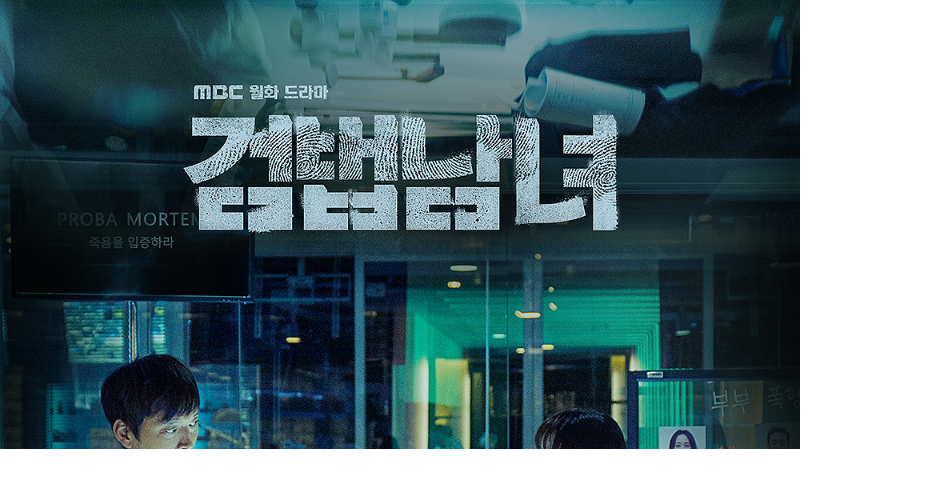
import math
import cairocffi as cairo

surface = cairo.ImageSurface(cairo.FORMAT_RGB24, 935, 489)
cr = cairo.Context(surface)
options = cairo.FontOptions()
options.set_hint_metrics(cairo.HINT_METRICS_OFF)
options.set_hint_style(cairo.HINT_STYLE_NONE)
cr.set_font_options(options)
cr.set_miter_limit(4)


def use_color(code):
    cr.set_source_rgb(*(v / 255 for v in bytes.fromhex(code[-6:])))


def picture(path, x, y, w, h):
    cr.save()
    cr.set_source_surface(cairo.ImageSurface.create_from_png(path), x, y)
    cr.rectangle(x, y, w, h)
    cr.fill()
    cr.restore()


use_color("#ffffff")
cr.paint()
picture("img1.png", 0, 0, 800, 449)
surface.write_to_png("result.png")
